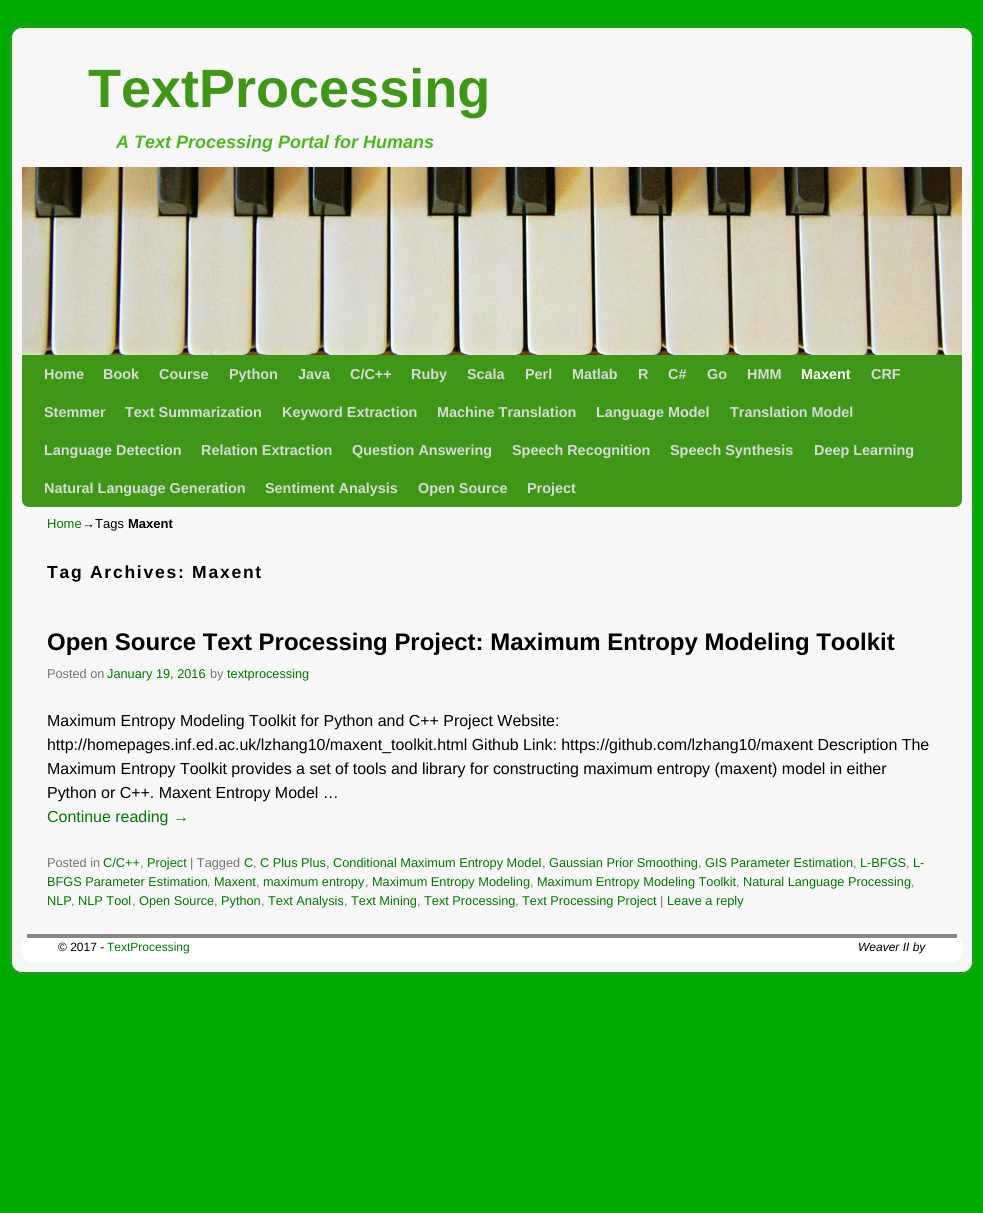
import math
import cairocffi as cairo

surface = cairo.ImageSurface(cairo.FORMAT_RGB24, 983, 1213)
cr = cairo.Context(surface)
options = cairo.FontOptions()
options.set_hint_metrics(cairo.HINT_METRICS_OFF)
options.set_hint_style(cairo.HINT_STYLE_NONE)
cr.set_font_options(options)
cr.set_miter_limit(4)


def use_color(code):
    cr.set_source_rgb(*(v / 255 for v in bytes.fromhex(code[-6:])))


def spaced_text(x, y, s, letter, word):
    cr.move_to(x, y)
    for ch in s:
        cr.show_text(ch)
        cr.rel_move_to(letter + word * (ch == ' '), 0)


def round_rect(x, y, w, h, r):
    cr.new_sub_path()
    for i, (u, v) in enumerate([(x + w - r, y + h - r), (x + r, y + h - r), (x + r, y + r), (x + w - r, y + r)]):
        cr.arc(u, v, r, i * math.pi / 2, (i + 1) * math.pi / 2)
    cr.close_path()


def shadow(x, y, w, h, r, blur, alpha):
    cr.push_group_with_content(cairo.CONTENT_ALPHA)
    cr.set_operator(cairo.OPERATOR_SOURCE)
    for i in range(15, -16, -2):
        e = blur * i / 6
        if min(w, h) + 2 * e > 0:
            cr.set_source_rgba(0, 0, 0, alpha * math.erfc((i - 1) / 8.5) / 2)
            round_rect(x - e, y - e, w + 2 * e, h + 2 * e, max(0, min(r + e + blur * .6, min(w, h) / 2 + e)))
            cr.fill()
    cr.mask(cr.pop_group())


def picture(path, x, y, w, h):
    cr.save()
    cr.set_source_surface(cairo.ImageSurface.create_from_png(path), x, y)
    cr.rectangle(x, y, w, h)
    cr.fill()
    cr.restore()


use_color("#00aa00")
cr.paint()
use_color("#7f7f7f")
shadow(9, 25, 966, 950, 13, 1.5, 0.25)
use_color("#f7f7f7")
round_rect(12, 28, 960, 944, 10)
cr.fill()
cr.select_font_face("Liberation Sans", cairo.FONT_SLANT_NORMAL, cairo.FONT_WEIGHT_BOLD)
cr.set_font_size(54)
use_color("#3f9718")
cr.move_to(88, 107)
cr.show_text("TextProcessing")
cr.select_font_face("Liberation Sans", cairo.FONT_SLANT_ITALIC, cairo.FONT_WEIGHT_BOLD)
cr.set_font_size(18)
use_color("#4db81d")
cr.move_to(116, 148)
cr.show_text("A Text Processing Portal for Humans")
picture("img1.png", 22, 167, 940, 188)
use_color("#3f9718")
cr.new_path()
cr.move_to(22, 355)
cr.line_to(962, 355)
cr.line_to(962, 500)
cr.curve_to(962, 504, 959, 507, 955, 507)
cr.line_to(29, 507)
cr.curve_to(25, 507, 22, 504, 22, 500)
cr.close_path()
cr.fill()
cr.select_font_face("Liberation Sans", cairo.FONT_SLANT_NORMAL, cairo.FONT_WEIGHT_BOLD)
cr.set_font_size(14.4)
use_color("#d9d9d9")
cr.move_to(44, 379)
cr.show_text("Home")
cr.move_to(103, 379)
cr.show_text("Book")
cr.move_to(159, 379)
cr.show_text("Course")
cr.move_to(229, 379)
cr.show_text("Python")
cr.move_to(298, 379)
cr.show_text("Java")
cr.move_to(350, 379)
cr.show_text("C/C++")
cr.move_to(411, 379)
cr.show_text("Ruby")
cr.move_to(467, 379)
cr.show_text("Scala")
cr.move_to(525, 379)
cr.show_text("Perl")
cr.move_to(572, 379)
cr.show_text("Matlab")
cr.move_to(638, 379)
cr.show_text("R")
cr.move_to(668, 379)
cr.show_text("C#")
cr.move_to(707, 379)
cr.show_text("Go")
cr.move_to(747, 379)
cr.show_text("HMM")
use_color("#ffffff")
cr.move_to(801, 379)
cr.show_text("Maxent")
use_color("#d9d9d9")
cr.move_to(871, 379)
cr.show_text("CRF")
cr.move_to(44, 417)
cr.show_text("Stemmer")
cr.move_to(125, 417)
cr.show_text("Text Summarization")
cr.move_to(282, 417)
cr.show_text("Keyword Extraction")
cr.move_to(437, 417)
cr.show_text("Machine Translation")
cr.move_to(596, 417)
cr.show_text("Language Model")
cr.move_to(730, 417)
cr.show_text("Translation Model")
cr.move_to(44, 455)
cr.show_text("Language Detection")
cr.move_to(201, 455)
cr.show_text("Relation Extraction")
cr.move_to(352, 455)
cr.show_text("Question Answering")
cr.move_to(512, 455)
cr.show_text("Speech Recognition")
cr.move_to(670, 455)
cr.show_text("Speech Synthesis")
cr.move_to(814, 455)
cr.show_text("Deep Learning")
cr.move_to(44, 493)
cr.show_text("Natural Language Generation")
cr.move_to(265, 493)
cr.show_text("Sentiment Analysis")
cr.move_to(418, 493)
cr.show_text("Open Source")
cr.move_to(527, 493)
cr.show_text("Project")
cr.select_font_face("Liberation Sans")
cr.set_font_size(13)
use_color("#007700")
cr.move_to(47, 528)
cr.show_text("Home")
use_color("#000000")
cr.move_to(82, 528)
cr.show_text("→Tags")
cr.select_font_face("Liberation Sans", cairo.FONT_SLANT_NORMAL, cairo.FONT_WEIGHT_BOLD)
cr.move_to(128, 528)
cr.show_text("Maxent")
cr.set_font_size(17.5)
spaced_text(47, 578, "Tag Archives: Maxent", 1.75, 0)
cr.set_font_size(23.95)
cr.move_to(47, 650)
cr.show_text("Open Source Text Processing Project: Maximum Entropy Modeling Toolkit")
cr.select_font_face("Liberation Sans")
cr.set_font_size(12.75)
use_color("#737373")
cr.move_to(47, 678)
cr.show_text("Posted on")
use_color("#007700")
cr.move_to(107, 678)
cr.show_text("January 19, 2016")
use_color("#737373")
cr.move_to(210, 678)
cr.show_text("by")
use_color("#007700")
cr.move_to(227, 678)
cr.show_text("textprocessing")
cr.set_font_size(15.95)
use_color("#000000")
cr.move_to(47, 726)
cr.show_text("Maximum Entropy Modeling Toolkit for Python and C++ Project Website:")
cr.move_to(47, 750)
cr.show_text("http://homepages.inf.ed.ac.uk/lzhang10/maxent_toolkit.html Github Link: https://github.com/lzhang10/maxent Description The")
cr.move_to(47, 774)
cr.show_text("Maximum Entropy Toolkit provides a set of tools and library for constructing maximum entropy (maxent) model in either")
cr.move_to(47, 798)
cr.show_text("Python or C++. Maxent Entropy Model …")
use_color("#007700")
cr.move_to(47, 822)
cr.show_text("Continue reading →")
cr.set_font_size(12.75)
use_color("#737373")
cr.move_to(47, 867)
cr.show_text("Posted in")
use_color("#007700")
cr.move_to(103, 867)
cr.show_text("C/C++")
use_color("#737373")
cr.move_to(140, 867)
cr.show_text(",")
use_color("#007700")
cr.move_to(147, 867)
cr.show_text("Project")
use_color("#737373")
cr.move_to(190, 867)
cr.show_text("| Tagged")
use_color("#007700")
cr.move_to(244, 867)
cr.show_text("C")
use_color("#737373")
cr.move_to(253, 867)
cr.show_text(",")
use_color("#007700")
cr.move_to(260, 867)
cr.show_text("C Plus Plus")
use_color("#737373")
cr.move_to(326, 867)
cr.show_text(",")
use_color("#007700")
cr.move_to(333, 867)
cr.show_text("Conditional Maximum Entropy Model")
use_color("#737373")
cr.move_to(542, 867)
cr.show_text(",")
use_color("#007700")
cr.move_to(549, 867)
cr.show_text("Gaussian Prior Smoothing")
use_color("#737373")
cr.move_to(698, 867)
cr.show_text(",")
use_color("#007700")
cr.move_to(705, 867)
cr.show_text("GIS Parameter Estimation")
use_color("#737373")
cr.move_to(853, 867)
cr.show_text(",")
use_color("#007700")
cr.move_to(860, 867)
cr.show_text("L-BFGS")
use_color("#737373")
cr.move_to(906, 867)
cr.show_text(",")
use_color("#007700")
cr.move_to(913, 867)
cr.show_text("L-")
cr.move_to(47, 886)
cr.show_text("BFGS Parameter Estimation")
use_color("#737373")
cr.move_to(207, 886)
cr.show_text(",")
use_color("#007700")
cr.move_to(214, 886)
cr.show_text("Maxent")
use_color("#737373")
cr.move_to(256, 886)
cr.show_text(",")
use_color("#007700")
cr.move_to(263, 886)
cr.show_text("maximum entropy")
use_color("#737373")
cr.move_to(365, 886)
cr.show_text(",")
use_color("#007700")
cr.move_to(372, 886)
cr.show_text("Maximum Entropy Modeling")
use_color("#737373")
cr.move_to(530, 886)
cr.show_text(",")
use_color("#007700")
cr.move_to(537, 886)
cr.show_text("Maximum Entropy Modeling Toolkit")
use_color("#737373")
cr.move_to(736, 886)
cr.show_text(",")
use_color("#007700")
cr.move_to(743, 886)
cr.show_text("Natural Language Processing")
use_color("#737373")
cr.move_to(911, 886)
cr.show_text(",")
use_color("#007700")
cr.move_to(47, 905)
cr.show_text("NLP")
use_color("#737373")
cr.move_to(71, 905)
cr.show_text(",")
use_color("#007700")
cr.move_to(78, 905)
cr.show_text("NLP Tool")
use_color("#737373")
cr.move_to(132, 905)
cr.show_text(",")
use_color("#007700")
cr.move_to(139, 905)
cr.show_text("Open Source")
use_color("#737373")
cr.move_to(214, 905)
cr.show_text(",")
use_color("#007700")
cr.move_to(221, 905)
cr.show_text("Python")
use_color("#737373")
cr.move_to(261, 905)
cr.show_text(",")
use_color("#007700")
cr.move_to(268, 905)
cr.show_text("Text Analysis")
use_color("#737373")
cr.move_to(344, 905)
cr.show_text(",")
use_color("#007700")
cr.move_to(351, 905)
cr.show_text("Text Mining")
use_color("#737373")
cr.move_to(417, 905)
cr.show_text(",")
use_color("#007700")
cr.move_to(424, 905)
cr.show_text("Text Processing")
use_color("#737373")
cr.move_to(515, 905)
cr.show_text(",")
use_color("#007700")
cr.move_to(522, 905)
cr.show_text("Text Processing Project")
use_color("#737373")
cr.move_to(660, 905)
cr.show_text("|")
use_color("#007700")
cr.move_to(667, 905)
cr.show_text("Leave a reply")
use_color("#fffffe")
round_rect(22, 934, 940, 28, 10)
cr.fill()
use_color("#888888")
cr.rectangle(27, 934, 930, 4)
cr.fill()
cr.set_font_size(12)
use_color("#000000")
cr.move_to(58, 951)
cr.show_text("© 2017 -")
use_color("#007700")
cr.move_to(107, 951)
cr.show_text("TextProcessing")
cr.select_font_face("Liberation Sans", cairo.FONT_SLANT_ITALIC)
use_color("#000000")
cr.move_to(858, 951)
cr.show_text("Weaver II by")
surface.write_to_png("result.png")
